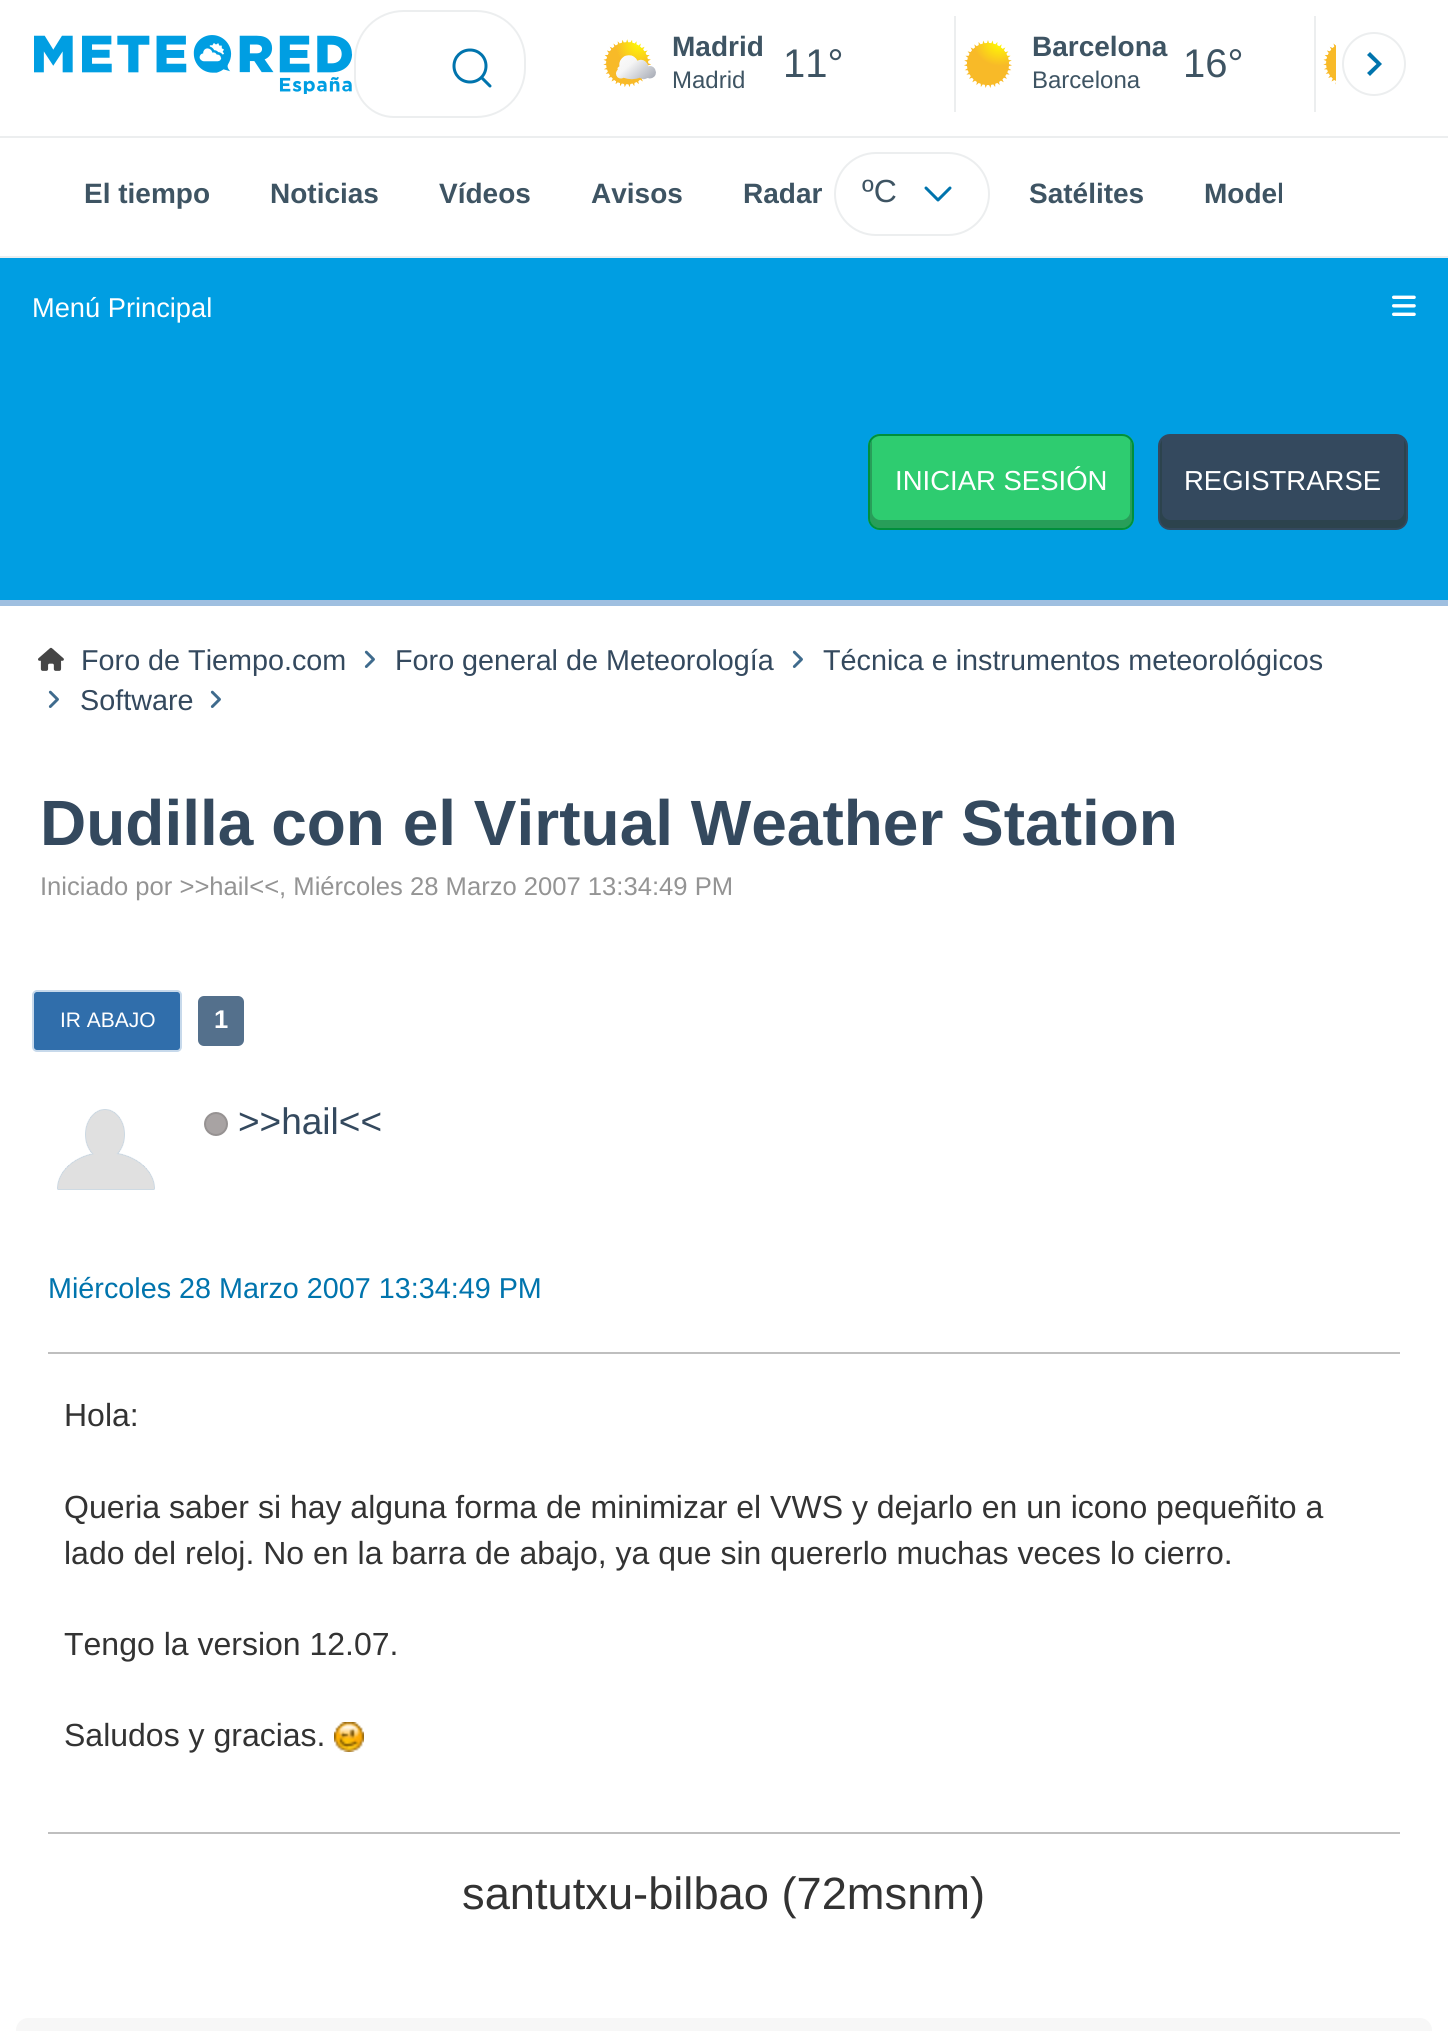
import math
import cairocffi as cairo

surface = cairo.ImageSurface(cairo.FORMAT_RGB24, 1448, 2031)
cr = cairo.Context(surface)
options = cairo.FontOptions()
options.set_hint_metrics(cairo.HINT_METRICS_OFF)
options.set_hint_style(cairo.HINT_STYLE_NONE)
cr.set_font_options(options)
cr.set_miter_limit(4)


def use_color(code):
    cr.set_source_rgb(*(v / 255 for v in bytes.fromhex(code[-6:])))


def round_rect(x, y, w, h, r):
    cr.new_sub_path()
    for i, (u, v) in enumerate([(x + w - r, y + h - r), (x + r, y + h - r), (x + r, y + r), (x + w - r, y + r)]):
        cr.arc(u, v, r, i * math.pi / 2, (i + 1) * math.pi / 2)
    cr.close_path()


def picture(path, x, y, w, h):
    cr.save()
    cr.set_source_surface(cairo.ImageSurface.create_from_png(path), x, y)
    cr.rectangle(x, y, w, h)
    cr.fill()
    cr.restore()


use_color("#ffffff")
cr.paint()
use_color("#eceeef")
cr.rectangle(0, 136, 1448, 2)
cr.fill()
picture("img1.png", 34, 35, 319, 59)
cr.set_fill_rule(cairo.FILL_RULE_EVEN_ODD)
cr.new_path()
cr.move_to(404, 10)
cr.line_to(420, 10)
cr.line_to(420, 118)
cr.line_to(394, 118)
cr.curve_to(372, 118, 354, 100, 354, 78)
cr.line_to(354, 60)
cr.curve_to(354, 32, 376, 10, 404, 10)
cr.close_path()
cr.move_to(404, 12)
cr.line_to(420, 12)
cr.line_to(420, 116)
cr.line_to(394, 116)
cr.curve_to(373, 116, 356, 99, 356, 78)
cr.line_to(356, 60)
cr.curve_to(356, 33, 377, 12, 404, 12)
cr.close_path()
cr.fill()
cr.new_path()
cr.move_to(420, 10)
cr.line_to(476, 10)
cr.curve_to(504, 10, 526, 32, 526, 60)
cr.line_to(526, 68)
cr.curve_to(526, 96, 504, 118, 476, 118)
cr.line_to(420, 118)
cr.close_path()
cr.move_to(420, 12)
cr.line_to(476, 12)
cr.curve_to(503, 12, 524, 33, 524, 60)
cr.line_to(524, 68)
cr.curve_to(524, 95, 503, 116, 476, 116)
cr.line_to(420, 116)
cr.close_path()
cr.fill()
cr.new_path()
cr.move_to(490, 86)
cr.line_to(481.5, 77.5)
cr.move_to(486, 66)
cr.curve_to(486, 75, 479, 82, 470, 82)
cr.curve_to(461, 82, 454, 75, 454, 66)
cr.curve_to(454, 57, 461, 50, 470, 50)
cr.curve_to(479, 50, 486, 57, 486, 66)
cr.close_path()
use_color("#0074ad")
cr.set_line_width(3)
cr.set_line_cap(cairo.LINE_CAP_ROUND)
cr.set_line_join(cairo.LINE_JOIN_ROUND)
cr.stroke()
picture("img2.png", 603, 39, 53, 48)
cr.select_font_face("Liberation Sans", cairo.FONT_SLANT_NORMAL, cairo.FONT_WEIGHT_BOLD)
cr.set_font_size(28)
use_color("#3e5463")
cr.move_to(672, 56)
cr.show_text("Madrid")
cr.select_font_face("Liberation Sans")
cr.set_font_size(24)
cr.move_to(672, 88)
cr.show_text("Madrid")
cr.set_font_size(40)
cr.move_to(783, 77)
cr.show_text("11°")
use_color("#eceeef")
cr.rectangle(954, 16, 2, 96)
cr.fill()
picture("img3.png", 964, 40, 48, 48)
cr.select_font_face("Liberation Sans", cairo.FONT_SLANT_NORMAL, cairo.FONT_WEIGHT_BOLD)
cr.set_font_size(28)
use_color("#3e5463")
cr.move_to(1032, 56)
cr.show_text("Barcelona")
cr.select_font_face("Liberation Sans")
cr.set_font_size(24)
cr.move_to(1032, 88)
cr.show_text("Barcelona")
cr.set_font_size(40)
cr.move_to(1183, 77)
cr.show_text("16°")
use_color("#eceeef")
cr.rectangle(1314, 16, 2, 96)
cr.fill()
picture("img4.png", 1323, 43, 13, 42)
cr.arc(1374, 64, 31, 0, 2 * math.pi)
cr.set_line_width(2)
cr.set_line_cap(cairo.LINE_CAP_BUTT)
cr.set_line_join(cairo.LINE_JOIN_MITER)
cr.stroke()
use_color("#0074ad")
cr.set_fill_rule(cairo.FILL_RULE_WINDING)
cr.new_path()
cr.move_to(1370, 52)
cr.line_to(1367, 55)
cr.line_to(1376.5, 64)
cr.line_to(1367, 73)
cr.line_to(1370, 76)
cr.line_to(1382, 64)
cr.close_path()
cr.fill()
use_color("#eceeef")
cr.rectangle(0, 256, 1448, 2)
cr.fill()
round_rect(835, 153, 154, 82, 41)
cr.stroke()
cr.set_font_size(32)
use_color("#3e5463")
cr.move_to(862, 202)
cr.show_text("ºC")
cr.new_path()
cr.move_to(926, 188)
cr.line_to(938, 200)
cr.line_to(950, 188)
use_color("#0074ad")
cr.set_line_width(3)
cr.set_line_cap(cairo.LINE_CAP_ROUND)
cr.set_line_join(cairo.LINE_JOIN_ROUND)
cr.stroke()
cr.select_font_face("Liberation Sans", cairo.FONT_SLANT_NORMAL, cairo.FONT_WEIGHT_BOLD)
cr.set_font_size(28)
use_color("#3e5463")
cr.move_to(84, 203)
cr.show_text("El tiempo")
cr.move_to(270, 203)
cr.show_text("Noticias")
cr.move_to(439, 203)
cr.show_text("Vídeos")
cr.move_to(591, 203)
cr.show_text("Avisos")
cr.move_to(743, 203)
cr.show_text("Radar")
cr.move_to(1029, 203)
cr.show_text("Satélites")
cr.save()
cr.rectangle(84, 138, 1198, 110)
cr.clip()
cr.move_to(1204, 203)
cr.show_text("Model")
cr.restore()
use_color("#009ee2")
cr.rectangle(0, 258, 1448, 342)
cr.fill()
cr.select_font_face("Liberation Sans")
cr.set_font_size(27.25)
use_color("#ffffff")
cr.move_to(32, 317)
cr.show_text("Menú Principal")
picture("img5.png", 1392, 295, 24, 21)
use_color("#9fbfe0")
cr.rectangle(0, 600, 1448, 6)
cr.fill()
use_color("#2ecc70")
round_rect(868, 434, 266, 96, 12)
cr.fill()
use_color("#289e59")
cr.new_path()
cr.move_to(872, 440)
cr.curve_to(871, 442, 870, 444, 870, 446)
cr.line_to(870, 518)
cr.curve_to(870, 524, 874, 528, 880, 528)
cr.line_to(1122, 528)
cr.curve_to(1128, 528, 1132, 524, 1132, 518)
cr.line_to(1132, 446)
cr.curve_to(1132, 444, 1131, 442, 1130, 440)
cr.line_to(1130, 512)
cr.curve_to(1130, 516, 1126, 520, 1122, 520)
cr.line_to(880, 520)
cr.curve_to(876, 520, 872, 516, 872, 512)
cr.close_path()
cr.fill()
round_rect(869, 435, 264, 94, 11)
use_color("#008f3c")
cr.set_line_width(2)
cr.set_line_cap(cairo.LINE_CAP_BUTT)
cr.set_line_join(cairo.LINE_JOIN_MITER)
cr.stroke()
cr.set_font_size(27.5)
use_color("#ffffff")
cr.move_to(895, 490)
cr.show_text("INICIAR SESIÓN")
use_color("#34495e")
round_rect(1158, 434, 250, 96, 12)
cr.fill()
use_color("#2c434d")
cr.new_path()
cr.move_to(1162, 440)
cr.curve_to(1161, 442, 1160, 444, 1160, 446)
cr.line_to(1160, 518)
cr.curve_to(1160, 524, 1164, 528, 1170, 528)
cr.line_to(1396, 528)
cr.curve_to(1402, 528, 1406, 524, 1406, 518)
cr.line_to(1406, 446)
cr.curve_to(1406, 444, 1405, 442, 1404, 440)
cr.line_to(1404, 512)
cr.curve_to(1404, 516, 1400, 520, 1396, 520)
cr.line_to(1170, 520)
cr.curve_to(1166, 520, 1162, 516, 1162, 512)
cr.close_path()
cr.fill()
use_color("#ffffff")
cr.move_to(1184, 490)
cr.show_text("REGISTRARSE")
picture("img6.png", 38, 647, 26, 24)
cr.set_font_size(28.75)
use_color("#34495e")
cr.move_to(81, 670)
cr.show_text("Foro de Tiempo.com")
picture("img7.png", 364, 650, 11, 18)
cr.move_to(395, 670)
cr.show_text("Foro general de Meteorología")
picture("img7.png", 792, 650, 11, 18)
cr.move_to(823, 670)
cr.show_text("Técnica e instrumentos meteorológicos")
picture("img7.png", 48, 690, 11, 18)
cr.move_to(80, 710)
cr.show_text("Software")
picture("img7.png", 210, 690, 11, 18)
cr.select_font_face("Liberation Sans", cairo.FONT_SLANT_NORMAL, cairo.FONT_WEIGHT_BOLD)
cr.set_font_size(64)
cr.move_to(40, 845)
cr.show_text("Dudilla con el Virtual Weather Station")
cr.select_font_face("Liberation Sans")
cr.set_font_size(25.6)
use_color("#949494")
cr.move_to(40, 895)
cr.show_text("Iniciado por >>hail<<, Miércoles 28 Marzo 2007 13:34:49 PM")
use_color("#306eab")
round_rect(33, 991, 148, 60, 4)
cr.fill_preserve()
use_color("#c7d9eb")
cr.stroke()
cr.set_font_size(21)
use_color("#ffffff")
cr.move_to(60, 1027)
cr.show_text("IR ABAJO")
use_color("#54708c")
round_rect(198, 996, 46, 50, 6)
cr.fill()
cr.select_font_face("Liberation Sans", cairo.FONT_SLANT_NORMAL, cairo.FONT_WEIGHT_BOLD)
cr.set_font_size(25.6)
use_color("#ffffff")
cr.move_to(214, 1028)
cr.show_text("1")
picture("img8.png", 57, 1109, 98, 81)
use_color("#a8a3a3")
cr.arc(216, 1124, 11, 0, 2 * math.pi)
cr.fill_preserve()
use_color("#969292")
cr.stroke()
cr.select_font_face("Liberation Sans")
cr.set_font_size(37)
use_color("#34495e")
cr.move_to(238, 1134)
cr.show_text(">>hail<<")
cr.set_font_size(28.75)
use_color("#0074ad")
cr.move_to(48, 1298)
cr.show_text("Miércoles 28 Marzo 2007 13:34:49 PM")
use_color("#bfbfbf")
cr.rectangle(48, 1352, 1352, 2)
cr.fill()
cr.set_font_size(32)
use_color("#333333")
cr.move_to(64, 1426)
cr.show_text("Hola:")
cr.move_to(64, 1518)
cr.show_text("Queria saber si hay alguna forma de minimizar el VWS y dejarlo en un icono pequeñito a")
cr.move_to(64, 1564)
cr.show_text("lado del reloj. No en la barra de abajo, ya que sin quererlo muchas veces lo cierro.")
cr.move_to(64, 1655)
cr.show_text("Tengo la version 12.07.")
cr.move_to(64, 1746)
cr.show_text("Saludos y gracias.")
picture("img9.png", 334, 1722, 30, 30)
use_color("#bfbfbf")
cr.rectangle(48, 1832, 1352, 2)
cr.fill()
cr.set_font_size(45.25)
use_color("#333333")
cr.move_to(462, 1909)
cr.show_text("santutxu-bilbao (72msnm)")
use_color("#f7f7f7")
cr.new_path()
cr.move_to(28, 2018)
cr.line_to(1420, 2018)
cr.curve_to(1426.5, 2018, 1432, 2023.5, 1432, 2030)
cr.line_to(1432, 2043)
cr.line_to(16, 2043)
cr.line_to(16, 2030)
cr.curve_to(16, 2023.5, 21.5, 2018, 28, 2018)
cr.close_path()
cr.fill()
surface.write_to_png("result.png")
